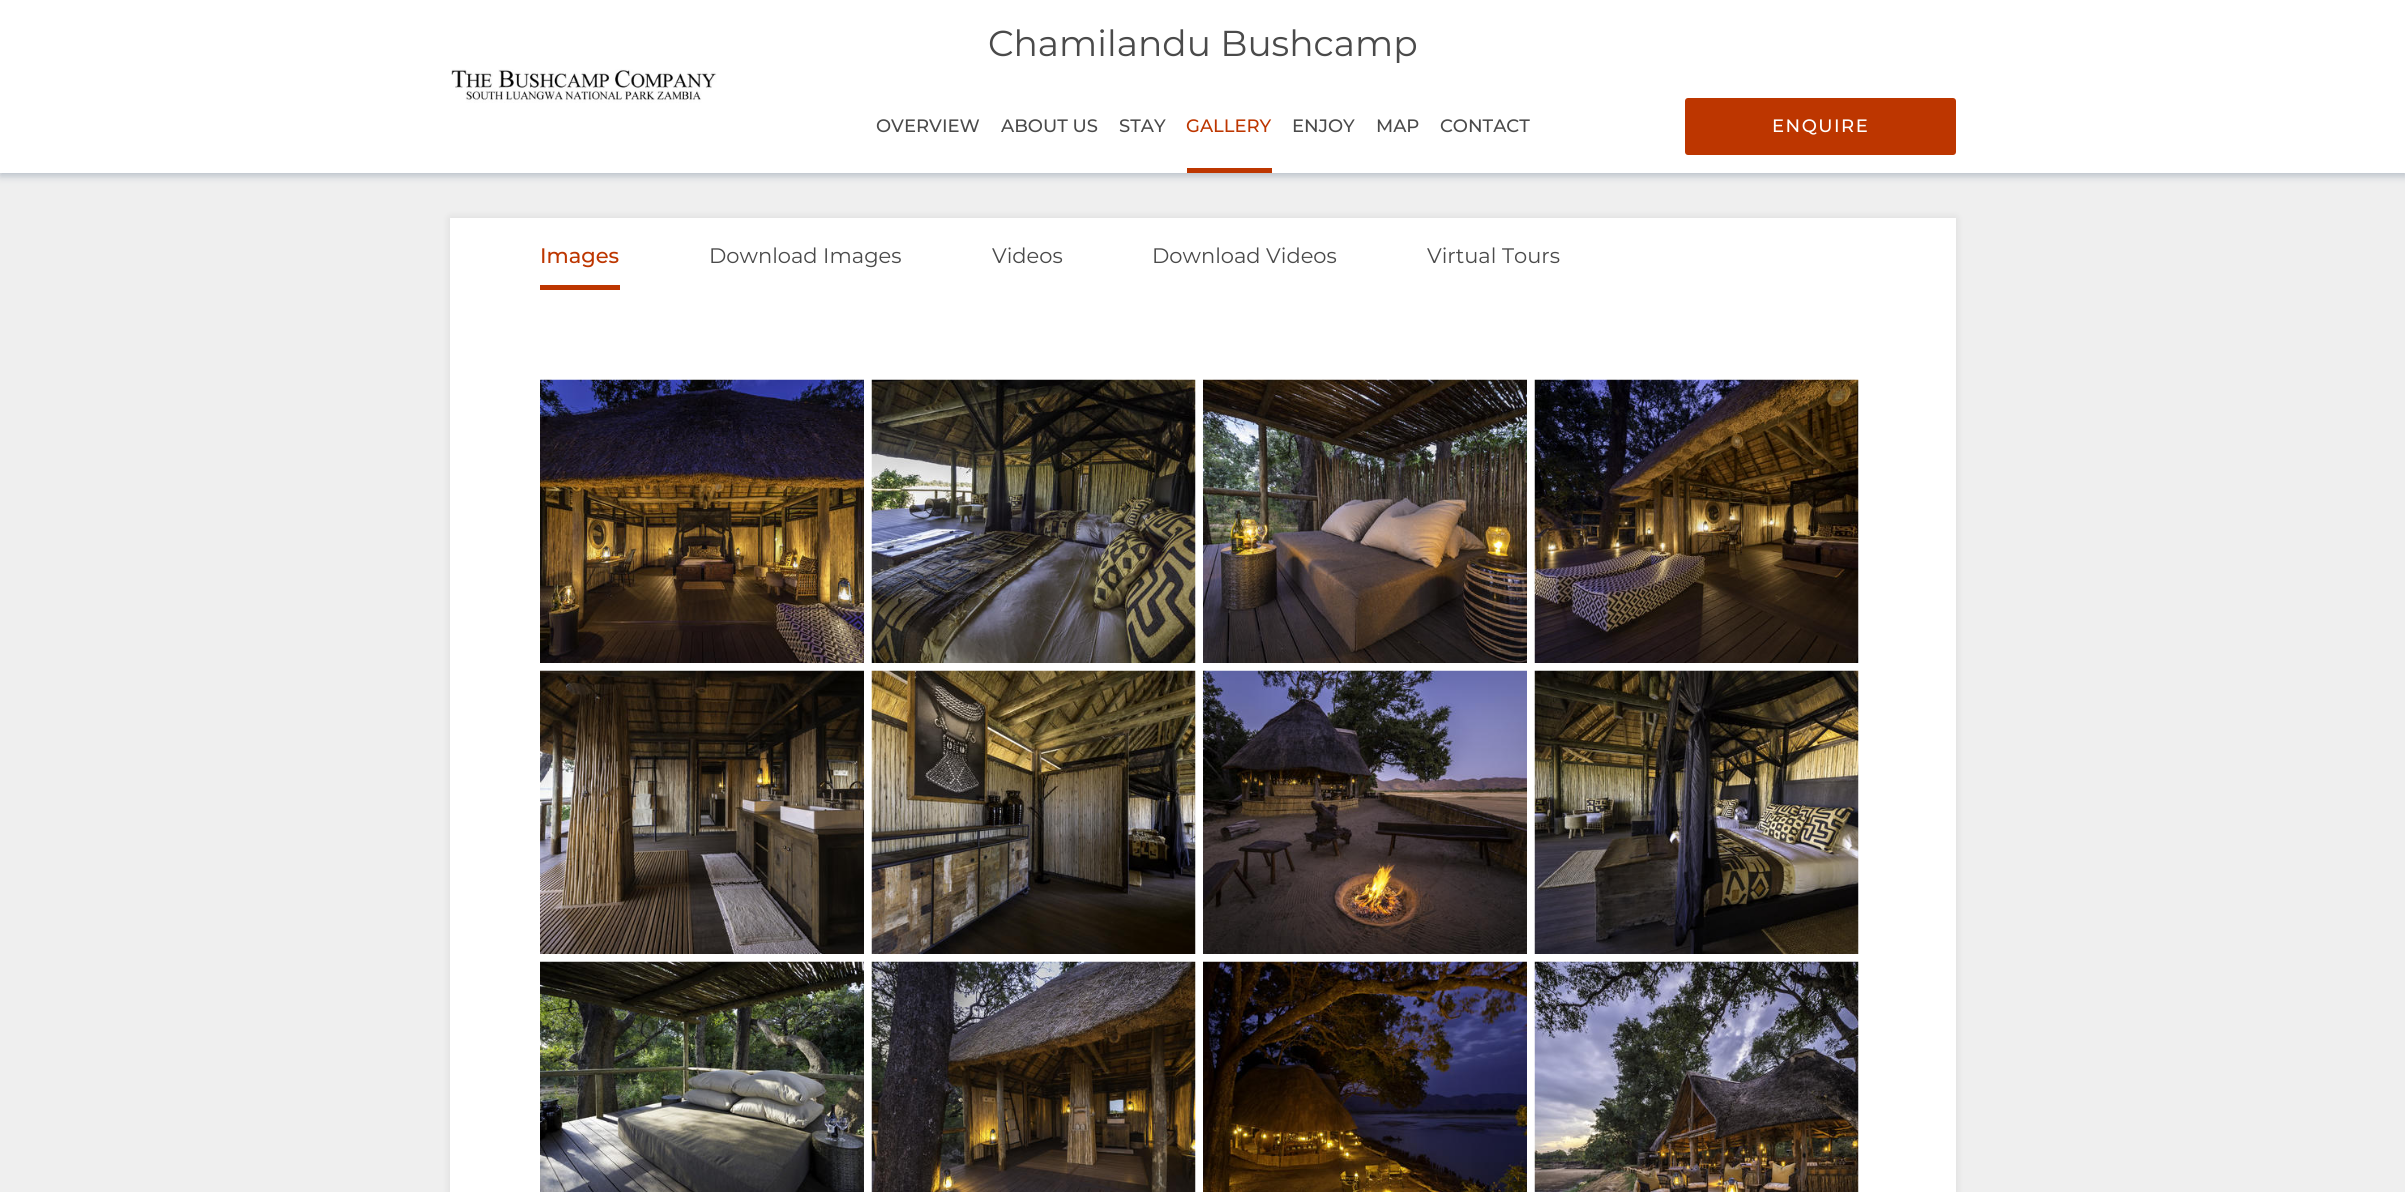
import math
import cairocffi as cairo

surface = cairo.ImageSurface(cairo.FORMAT_RGB24, 2405, 1192)
cr = cairo.Context(surface)
options = cairo.FontOptions()
options.set_hint_metrics(cairo.HINT_METRICS_OFF)
options.set_hint_style(cairo.HINT_STYLE_NONE)
cr.set_font_options(options)
cr.set_miter_limit(4)


def use_color(code):
    cr.set_source_rgb(*(v / 255 for v in bytes.fromhex(code[-6:])))


def spaced_text(x, y, s, letter, word):
    cr.move_to(x, y)
    for ch in s:
        cr.show_text(ch)
        cr.rel_move_to(letter + word * (ch == ' '), 0)


def round_rect(x, y, w, h, r):
    cr.new_sub_path()
    for i, (u, v) in enumerate([(x + w - r, y + h - r), (x + r, y + h - r), (x + r, y + r), (x + w - r, y + r)]):
        cr.arc(u, v, r, i * math.pi / 2, (i + 1) * math.pi / 2)
    cr.close_path()


def shadow(x, y, w, h, r, blur, alpha):
    cr.push_group_with_content(cairo.CONTENT_ALPHA)
    cr.set_operator(cairo.OPERATOR_SOURCE)
    for i in range(15, -16, -2):
        e = blur * i / 6
        if min(w, h) + 2 * e > 0:
            cr.set_source_rgba(0, 0, 0, alpha * math.erfc((i - 1) / 8.5) / 2)
            round_rect(x - e, y - e, w + 2 * e, h + 2 * e, max(0, min(r + e + blur * .6, min(w, h) / 2 + e)))
            cr.fill()
    cr.mask(cr.pop_group())


def picture(path, x, y, w, h):
    cr.save()
    cr.set_source_surface(cairo.ImageSurface.create_from_png(path), x, y)
    cr.rectangle(x, y, w, h)
    cr.fill()
    cr.restore()


use_color("#efefef")
cr.paint()
use_color("#7f8ea0")
shadow(0, 3, 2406, 173, 0, 4, 0.5)
use_color("#ffffff")
cr.rectangle(0, 0, 2405, 173)
cr.fill()
picture("img1.png", 451, 69, 266, 34)
cr.select_font_face("Montserrat")
cr.set_font_size(36)
use_color("#4a4a4a")
cr.move_to(988, 56)
cr.show_text("Chamilandu Bushcamp")
cr.select_font_face("Montserrat Medium")
cr.set_font_size(18)
cr.move_to(876, 132)
cr.show_text("OVERVIEW")
cr.move_to(1001, 132)
cr.show_text("ABOUT US")
cr.move_to(1119, 132)
cr.show_text("STAY")
use_color("#bd3600")
cr.move_to(1186, 132)
cr.show_text("GALLERY")
cr.rectangle(1187, 168, 85, 5)
cr.fill()
use_color("#4a4a4a")
cr.move_to(1292, 132)
cr.show_text("ENJOY")
cr.move_to(1376, 132)
cr.show_text("MAP")
cr.move_to(1440, 132)
cr.show_text("CONTACT")
use_color("#bd3600")
round_rect(1685, 98, 271, 57, 3)
cr.fill()
use_color("#ffffff")
spaced_text(1772, 132, "ENQUIRE", 1.5, 0)
use_color("#000000")
shadow(450, 218, 1506, 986, 0, 4, 0.1)
use_color("#ffffff")
cr.rectangle(450, 218, 1506, 974)
cr.fill()
cr.set_font_size(21)
use_color("#bd3600")
cr.move_to(540, 263)
cr.show_text("Images")
cr.rectangle(540, 285, 80, 5)
cr.fill()
cr.select_font_face("Montserrat")
use_color("#4a4a4a")
cr.move_to(709, 263)
cr.show_text("Download Images")
cr.move_to(992, 263)
cr.show_text("Videos")
cr.move_to(1152, 263)
cr.show_text("Download Videos")
cr.move_to(1427, 263)
cr.show_text("Virtual Tours")
picture("img2.png", 540, 379, 324, 284)
picture("img3.png", 871, 379, 325, 284)
picture("img4.png", 1203, 379, 324, 284)
picture("img5.png", 1534, 379, 325, 284)
picture("img6.png", 540, 670, 324, 284)
picture("img7.png", 871, 670, 325, 284)
picture("img8.png", 1203, 670, 324, 284)
picture("img9.png", 1534, 670, 325, 284)
picture("img10.png", 540, 961, 324, 231)
picture("img11.png", 871, 961, 325, 231)
picture("img12.png", 1203, 961, 324, 231)
picture("img13.png", 1534, 961, 325, 231)
surface.write_to_png("result.png")
